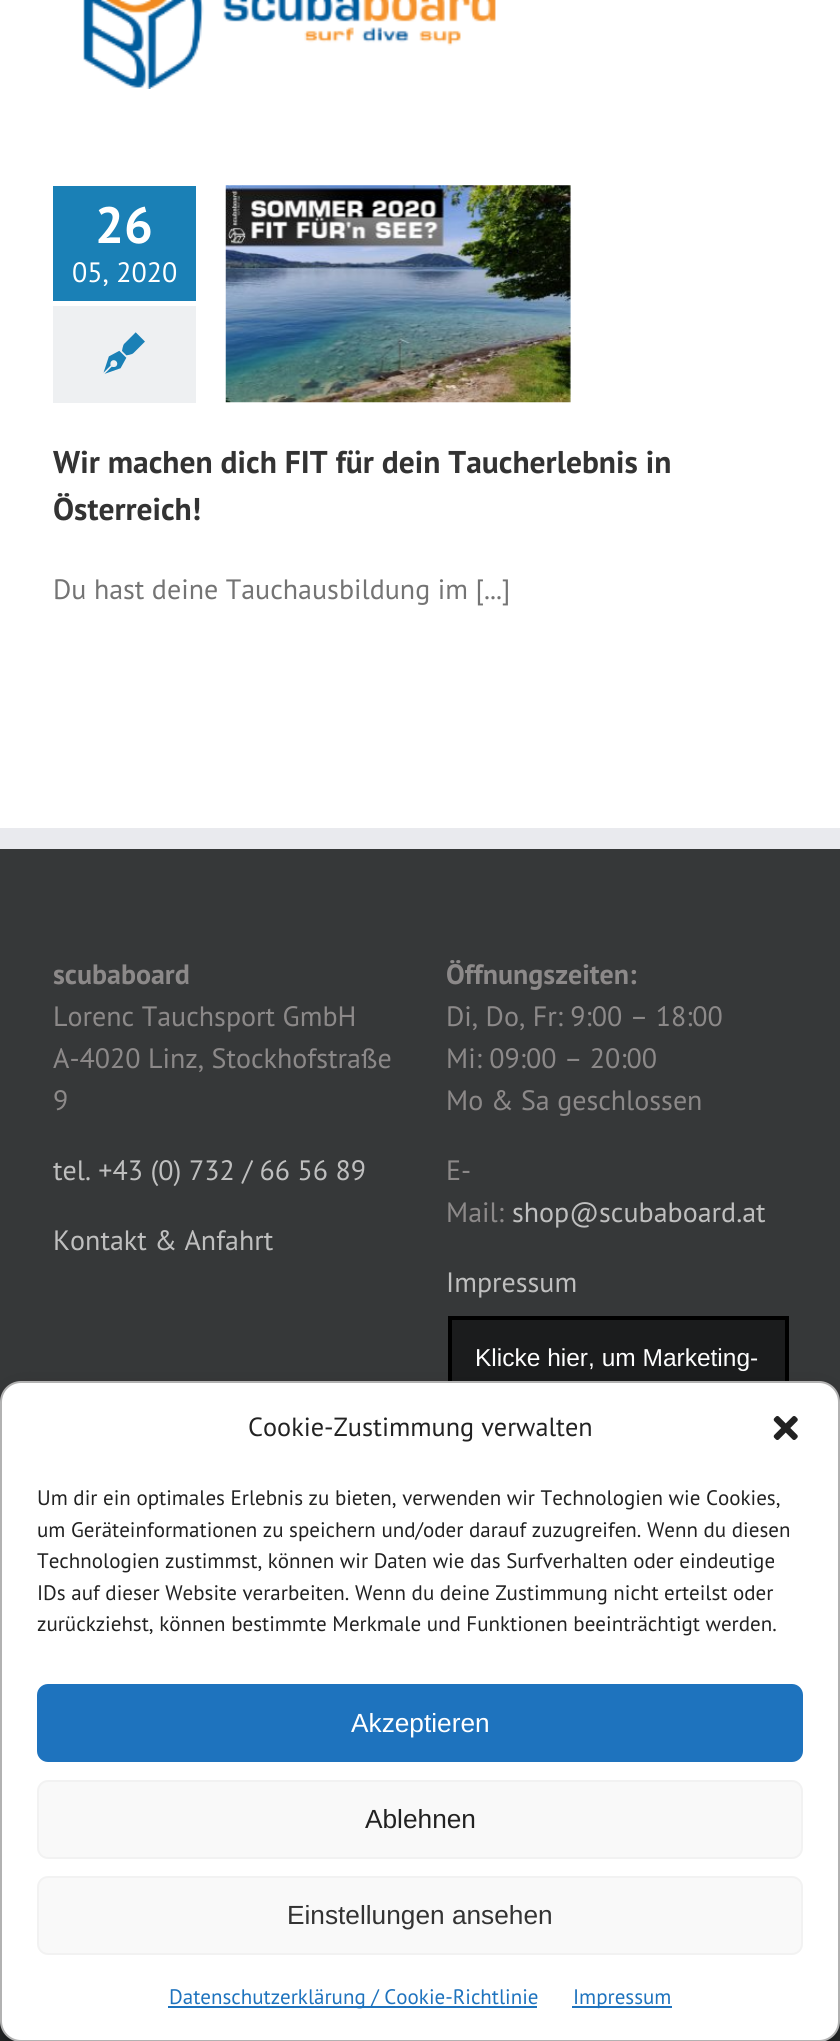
import math
import cairocffi as cairo

surface = cairo.ImageSurface(cairo.FORMAT_RGB24, 840, 2041)
cr = cairo.Context(surface)
options = cairo.FontOptions()
options.set_hint_metrics(cairo.HINT_METRICS_OFF)
options.set_hint_style(cairo.HINT_STYLE_NONE)
cr.set_font_options(options)
cr.set_miter_limit(4)


def use_color(code):
    cr.set_source_rgb(*(v / 255 for v in bytes.fromhex(code[-6:])))


def round_rect(x, y, w, h, r):
    cr.new_sub_path()
    for i, (u, v) in enumerate([(x + w - r, y + h - r), (x + r, y + h - r), (x + r, y + r), (x + w - r, y + r)]):
        cr.arc(u, v, r, i * math.pi / 2, (i + 1) * math.pi / 2)
    cr.close_path()


def shadow(x, y, w, h, r, blur, alpha):
    cr.push_group_with_content(cairo.CONTENT_ALPHA)
    cr.set_operator(cairo.OPERATOR_SOURCE)
    for i in range(15, -16, -2):
        e = blur * i / 6
        if min(w, h) + 2 * e > 0:
            cr.set_source_rgba(0, 0, 0, alpha * math.erfc((i - 1) / 8.5) / 2)
            round_rect(x - e, y - e, w + 2 * e, h + 2 * e, max(0, min(r + e + blur * .6, min(w, h) / 2 + e)))
            cr.fill()
    cr.mask(cr.pop_group())


def picture(path, x, y, w, h):
    cr.save()
    cr.set_source_surface(cairo.ImageSurface.create_from_png(path), x, y)
    cr.rectangle(x, y, w, h)
    cr.fill()
    cr.restore()


use_color("#ffffff")
cr.paint()
picture("img1.png", 83, 0, 413, 89)
use_color("#1a80b6")
cr.rectangle(53, 186, 143, 115)
cr.fill()
cr.select_font_face("PT Sans", cairo.FONT_SLANT_NORMAL, cairo.FONT_WEIGHT_BOLD)
cr.set_font_size(51)
use_color("#ffffff")
cr.move_to(95, 243)
cr.show_text("26")
cr.select_font_face("PT Sans")
cr.set_font_size(28)
cr.move_to(72, 282)
cr.show_text("05, 2020")
use_color("#eef0f2")
cr.rectangle(53, 306, 143, 97)
cr.fill()
picture("img2.png", 103, 332, 42, 42)
picture("img3.png", 225, 185, 346, 218)
cr.select_font_face("PT Sans", cairo.FONT_SLANT_NORMAL, cairo.FONT_WEIGHT_BOLD)
cr.set_font_size(31.5)
use_color("#333333")
cr.move_to(53, 473)
cr.show_text("Wir machen dich FIT für dein Taucherlebnis in")
cr.move_to(53, 520)
cr.show_text("Österreich!")
cr.select_font_face("PT Sans")
cr.set_font_size(28)
use_color("#747474")
cr.move_to(53, 599)
cr.show_text("Du hast deine Tauchausbildung im [...]")
use_color("#363839")
cr.rectangle(0, 849, 840, 553)
cr.fill()
use_color("#e9eaee")
cr.rectangle(0, 828, 840, 21)
cr.fill()
cr.select_font_face("PT Sans", cairo.FONT_SLANT_NORMAL, cairo.FONT_WEIGHT_BOLD)
use_color("#8c8989")
cr.move_to(53, 984)
cr.show_text("scubaboard")
cr.select_font_face("PT Sans")
cr.move_to(53, 1026)
cr.show_text("Lorenc Tauchsport GmbH")
cr.move_to(53, 1068)
cr.show_text("A-4020 Linz, Stockhofstraße")
cr.move_to(53, 1110)
cr.show_text("9")
use_color("#bfbfbf")
cr.move_to(53, 1180)
cr.show_text("tel. +43 (0) 732 / 66 56 89")
cr.move_to(53, 1250)
cr.show_text("Kontakt & Anfahrt")
cr.select_font_face("PT Sans", cairo.FONT_SLANT_NORMAL, cairo.FONT_WEIGHT_BOLD)
use_color("#8c8989")
cr.move_to(446, 984)
cr.show_text("Öffnungszeiten:")
cr.select_font_face("PT Sans")
cr.move_to(446, 1026)
cr.show_text("Di, Do, Fr: 9:00 – 18:00")
cr.move_to(446, 1068)
cr.show_text("Mi: 09:00 – 20:00")
cr.move_to(446, 1110)
cr.show_text("Mo & Sa geschlossen")
cr.move_to(446, 1180)
cr.show_text("E-")
cr.move_to(446, 1222)
cr.show_text("Mail:")
use_color("#bfbfbf")
cr.move_to(512, 1222)
cr.show_text("shop@scubaboard.at")
cr.move_to(446, 1292)
cr.show_text("Impressum")
use_color("#1b1c1d")
cr.rectangle(452, 1320, 333, 61)
cr.fill()
cr.rectangle(450, 1318, 337, 199)
use_color("#000000")
cr.set_line_width(4)
cr.stroke()
cr.select_font_face("Liberation Sans")
cr.set_font_size(24.5)
use_color("#ffffff")
cr.move_to(475, 1366)
cr.show_text("Klicke hier, um Marketing-")
use_color("#282a2b")
cr.rectangle(0, 2021, 840, 20)
cr.fill()
use_color("#000000")
shadow(0, 1391, 840, 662, 21, 5, 0.23)
shadow(0, 1398, 840, 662, 21, 17.5, 0.19)
use_color("#ffffff")
round_rect(1, 1382, 838, 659, 20)
cr.fill_preserve()
use_color("#b2b2b2")
cr.set_line_width(2)
cr.stroke()
cr.select_font_face("PT Sans")
cr.set_font_size(26.25)
use_color("#222222")
cr.move_to(248, 1436)
cr.show_text("Cookie-Zustimmung verwalten")
picture("img4.png", 773, 1416, 25, 24)
cr.set_font_size(21)
cr.move_to(37, 1505)
cr.show_text("Um dir ein optimales Erlebnis zu bieten, verwenden wir Technologien wie Cookies,")
cr.move_to(37, 1537)
cr.show_text("um Geräteinformationen zu speichern und/oder darauf zuzugreifen. Wenn du diesen")
cr.move_to(37, 1568)
cr.show_text("Technologien zustimmst, können wir Daten wie das Surfverhalten oder eindeutige")
cr.move_to(37, 1600)
cr.show_text("IDs auf dieser Website verarbeiten. Wenn du deine Zustimmung nicht erteilst oder")
cr.move_to(37, 1631)
cr.show_text("zurückziehst, können bestimmte Merkmale und Funktionen beeinträchtigt werden.")
use_color("#1e73be")
round_rect(38, 1685, 764, 76, 10)
cr.fill_preserve()
cr.stroke()
cr.select_font_face("Liberation Sans")
cr.set_font_size(26.25)
use_color("#ffffff")
cr.move_to(351, 1732)
cr.show_text("Akzeptieren")
use_color("#f9f9f9")
round_rect(38, 1781, 764, 77, 10)
cr.fill_preserve()
use_color("#f2f2f2")
cr.stroke()
use_color("#222222")
cr.move_to(365, 1828)
cr.show_text("Ablehnen")
use_color("#f9f9f9")
round_rect(38, 1877, 764, 77, 10)
cr.fill_preserve()
use_color("#f2f2f2")
cr.stroke()
use_color("#333333")
cr.move_to(287, 1924)
cr.show_text("Einstellungen ansehen")
use_color("#1e73be")
cr.rectangle(168, 2006, 369, 2)
cr.fill()
cr.select_font_face("PT Sans")
cr.set_font_size(21)
cr.move_to(169, 2004)
cr.show_text("Datenschutzerklärung / Cookie-Richtlinie")
cr.rectangle(572, 2006, 100, 2)
cr.fill()
cr.move_to(573, 2004)
cr.show_text("Impressum")
surface.write_to_png("result.png")
